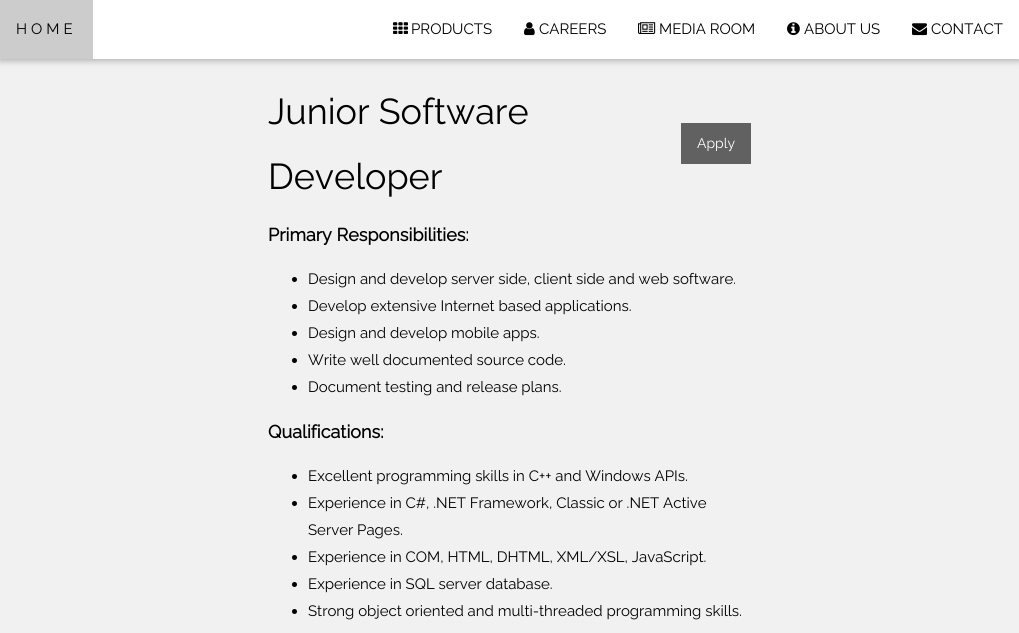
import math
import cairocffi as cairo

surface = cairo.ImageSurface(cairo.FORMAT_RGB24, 1019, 633)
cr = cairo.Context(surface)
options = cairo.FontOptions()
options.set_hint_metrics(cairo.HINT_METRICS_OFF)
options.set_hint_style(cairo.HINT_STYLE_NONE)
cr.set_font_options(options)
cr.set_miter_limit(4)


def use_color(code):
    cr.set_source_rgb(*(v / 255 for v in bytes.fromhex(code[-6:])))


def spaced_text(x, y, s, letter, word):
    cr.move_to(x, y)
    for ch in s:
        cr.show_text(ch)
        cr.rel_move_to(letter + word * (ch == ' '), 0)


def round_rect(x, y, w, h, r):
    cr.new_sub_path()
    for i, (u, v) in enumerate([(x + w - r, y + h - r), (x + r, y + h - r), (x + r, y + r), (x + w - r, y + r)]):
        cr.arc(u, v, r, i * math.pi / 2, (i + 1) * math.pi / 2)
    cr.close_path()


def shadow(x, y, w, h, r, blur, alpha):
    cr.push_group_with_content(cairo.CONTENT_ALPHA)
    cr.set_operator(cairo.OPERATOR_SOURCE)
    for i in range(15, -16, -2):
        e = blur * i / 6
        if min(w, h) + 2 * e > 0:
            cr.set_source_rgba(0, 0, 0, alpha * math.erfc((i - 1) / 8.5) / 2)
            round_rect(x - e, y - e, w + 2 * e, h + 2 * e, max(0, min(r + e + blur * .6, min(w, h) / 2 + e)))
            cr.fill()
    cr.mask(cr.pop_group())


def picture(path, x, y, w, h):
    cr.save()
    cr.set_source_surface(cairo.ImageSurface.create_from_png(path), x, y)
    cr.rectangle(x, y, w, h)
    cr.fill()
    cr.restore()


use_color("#f1f1f1")
cr.paint()
use_color("#000000")
shadow(0, 2, 1019, 59, 0, 5, 0.12)
shadow(0, 2, 1019, 59, 0, 2.5, 0.16)
use_color("#ffffff")
cr.rectangle(93, 0, 926, 59)
cr.fill()
use_color("#cccccc")
cr.rectangle(0, 0, 93, 59)
cr.fill()
cr.select_font_face("Raleway Thin")
cr.set_font_size(15)
use_color("#000000")
spaced_text(16, 34, "HOME", 4, 0)
picture("img1.png", 393, 22, 15, 12)
cr.move_to(411, 34)
cr.show_text("PRODUCTS")
picture("img2.png", 524, 22, 11, 14)
cr.move_to(539, 34)
cr.show_text("CAREERS")
picture("img3.png", 638, 22, 18, 12)
cr.move_to(659, 34)
cr.show_text("MEDIA ROOM")
picture("img4.png", 787, 22, 13, 14)
cr.move_to(804, 34)
cr.show_text("ABOUT US")
picture("img5.png", 912, 23, 15, 13)
cr.move_to(931, 34)
cr.show_text("CONTACT")
cr.set_font_size(36)
cr.move_to(268, 124)
cr.show_text("Junior Software")
use_color("#616161")
cr.rectangle(681, 123, 70, 41)
cr.fill()
cr.set_font_size(14)
use_color("#ffffff")
cr.move_to(697, 148)
cr.show_text("Apply")
cr.set_font_size(36)
use_color("#000000")
cr.move_to(268, 189)
cr.show_text("Developer")
cr.select_font_face("Raleway", cairo.FONT_SLANT_NORMAL, cairo.FONT_WEIGHT_BOLD)
cr.set_font_size(18)
cr.move_to(268, 241)
cr.show_text("Primary Responsibilities:")
cr.new_path()
cr.arc(294.5, 279.5, 2.5, 0, 2 * math.pi)
cr.fill()
cr.select_font_face("Raleway Thin")
cr.set_font_size(15)
cr.move_to(308, 284)
cr.show_text("Design and develop server side, client side and web software.")
cr.new_path()
cr.arc(294.5, 306.5, 2.5, 0, 2 * math.pi)
cr.fill()
cr.move_to(308, 311)
cr.show_text("Develop extensive Internet based applications.")
cr.new_path()
cr.arc(294.5, 333.5, 2.5, 0, 2 * math.pi)
cr.fill()
cr.move_to(308, 338)
cr.show_text("Design and develop mobile apps.")
cr.new_path()
cr.arc(294.5, 360.5, 2.5, 0, 2 * math.pi)
cr.fill()
cr.move_to(308, 365)
cr.show_text("Write well documented source code.")
cr.new_path()
cr.arc(294.5, 387.5, 2.5, 0, 2 * math.pi)
cr.fill()
cr.move_to(308, 392)
cr.show_text("Document testing and release plans.")
cr.select_font_face("Raleway", cairo.FONT_SLANT_NORMAL, cairo.FONT_WEIGHT_BOLD)
cr.set_font_size(18)
cr.move_to(268, 438)
cr.show_text("Qualifications:")
cr.new_path()
cr.arc(294.5, 476.5, 2.5, 0, 2 * math.pi)
cr.fill()
cr.select_font_face("Raleway Thin")
cr.set_font_size(15)
cr.move_to(308, 481)
cr.show_text("Excellent programming skills in C++ and Windows APIs.")
cr.new_path()
cr.arc(294.5, 503.5, 2.5, 0, 2 * math.pi)
cr.fill()
cr.move_to(308, 508)
cr.show_text("Experience in C#, .NET Framework, Classic or .NET Active")
cr.move_to(308, 535)
cr.show_text("Server Pages.")
cr.new_path()
cr.arc(294.5, 557.5, 2.5, 0, 2 * math.pi)
cr.fill()
cr.move_to(308, 562)
cr.show_text("Experience in COM, HTML, DHTML, XML/XSL, JavaScript.")
cr.new_path()
cr.arc(294.5, 584.5, 2.5, 0, 2 * math.pi)
cr.fill()
cr.move_to(308, 589)
cr.show_text("Experience in SQL server database.")
cr.new_path()
cr.arc(294.5, 611.5, 2.5, 0, 2 * math.pi)
cr.fill()
cr.move_to(308, 616)
cr.show_text("Strong object oriented and multi-threaded programming skills.")
surface.write_to_png("result.png")
